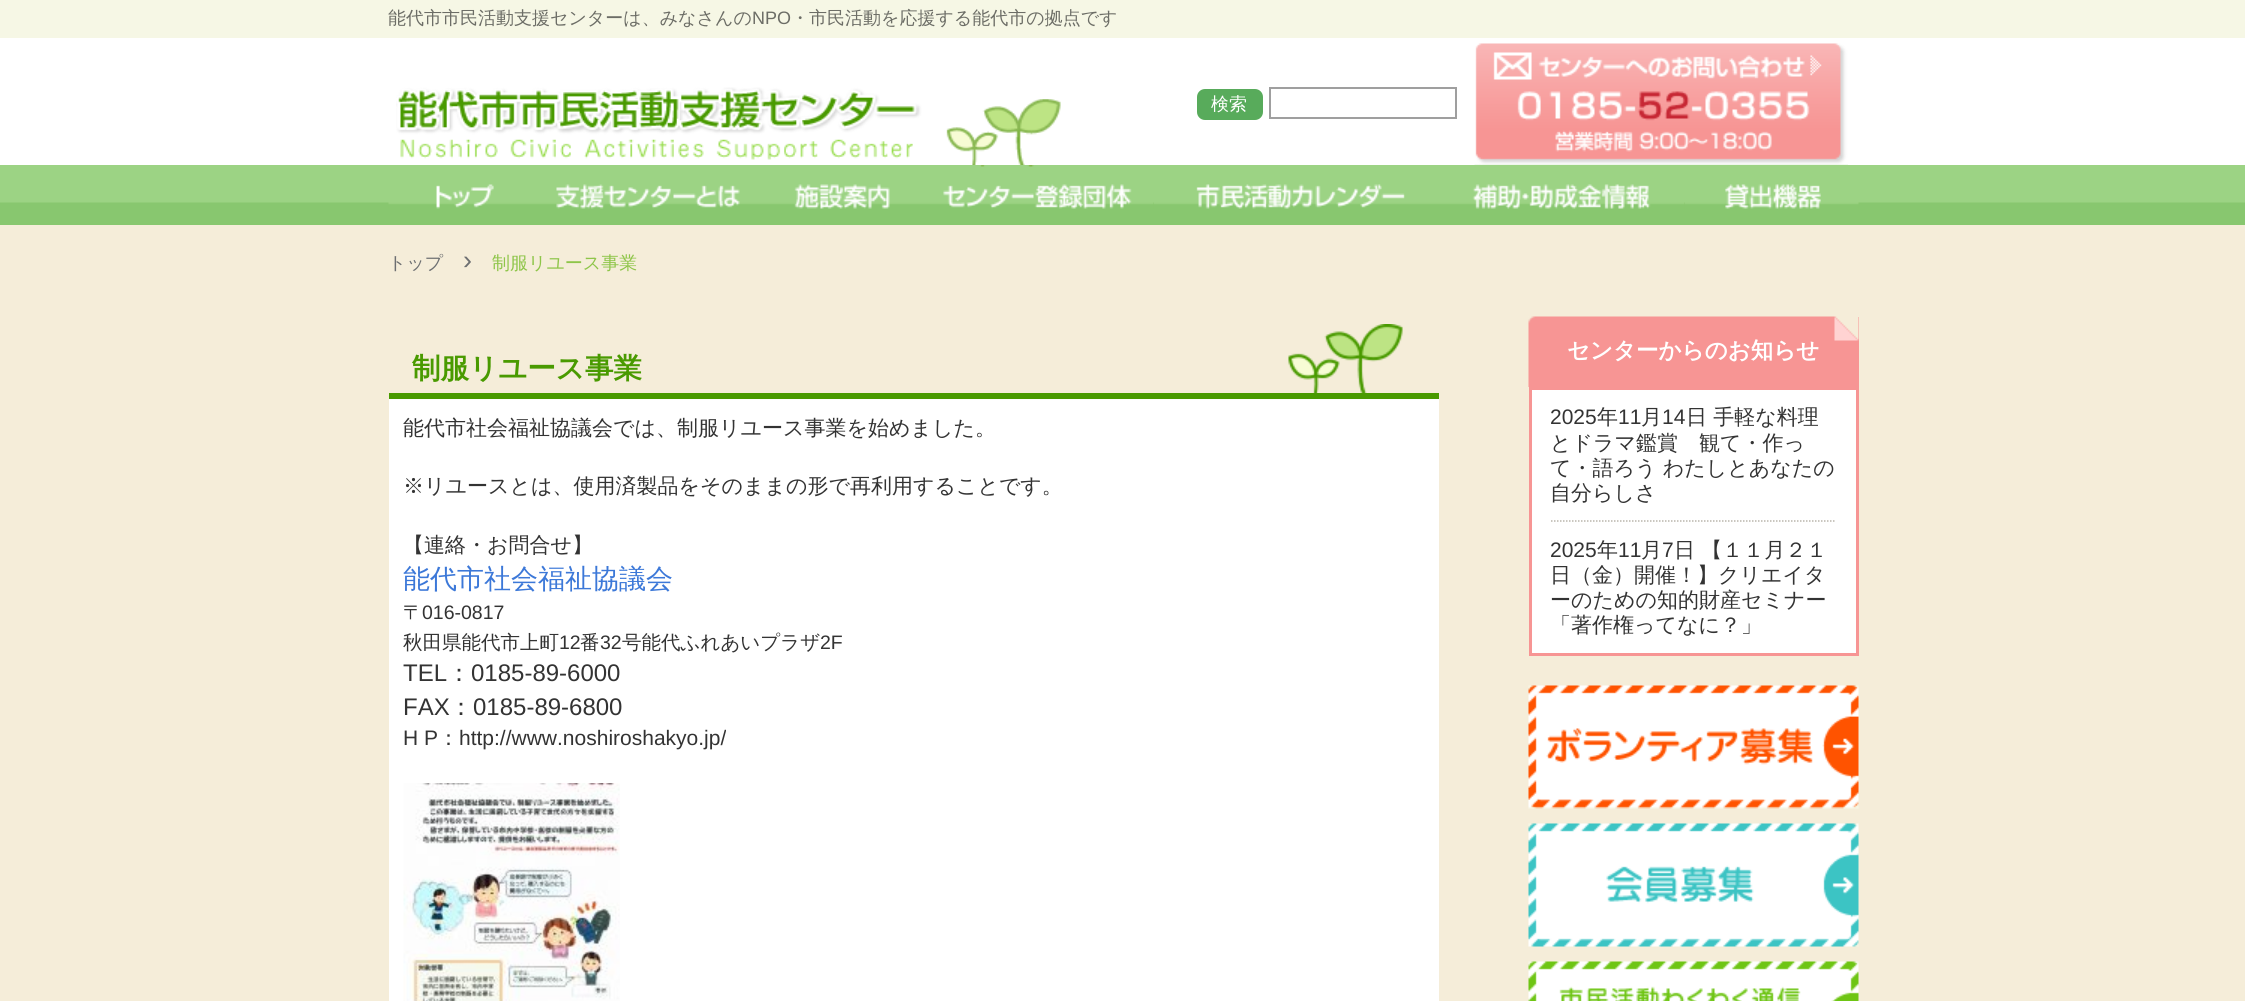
import math
import cairocffi as cairo

surface = cairo.ImageSurface(cairo.FORMAT_RGB24, 2245, 1001)
cr = cairo.Context(surface)
options = cairo.FontOptions()
options.set_hint_metrics(cairo.HINT_METRICS_OFF)
options.set_hint_style(cairo.HINT_STYLE_NONE)
cr.set_font_options(options)
cr.set_miter_limit(4)


def use_color(code):
    cr.set_source_rgb(*(v / 255 for v in bytes.fromhex(code[-6:])))


def round_rect(x, y, w, h, r):
    cr.new_sub_path()
    for i, (u, v) in enumerate([(x + w - r, y + h - r), (x + r, y + h - r), (x + r, y + r), (x + w - r, y + r)]):
        cr.arc(u, v, r, i * math.pi / 2, (i + 1) * math.pi / 2)
    cr.close_path()


def picture(path, x, y, w, h):
    cr.save()
    cr.set_source_surface(cairo.ImageSurface.create_from_png(path), x, y)
    cr.rectangle(x, y, w, h)
    cr.fill()
    cr.restore()


use_color("#f5edd9")
cr.paint()
use_color("#ffffff")
cr.rectangle(0, 38, 2245, 127)
cr.fill()
use_color("#f6f7e5")
cr.rectangle(0, 0, 2245, 38)
cr.fill()
cr.select_font_face("WenQuanYi Zen Hei Medium")
cr.set_font_size(18)
use_color("#6c6d66")
cr.move_to(388, 24)
cr.show_text("能代市市民活動支援センターは、みなさんの")
cr.select_font_face("Liberation Sans")
cr.move_to(752, 24)
cr.show_text("NPO")
cr.select_font_face("WenQuanYi Zen Hei Medium")
cr.move_to(791, 24)
cr.show_text("・市民活動を応援する能代市の拠点です")
picture("img1.png", 396, 87, 665, 78)
use_color("#58ab5b")
round_rect(1197, 89, 66, 31, 8)
cr.fill()
use_color("#ffffff")
cr.move_to(1211, 110)
cr.show_text("検索")
cr.rectangle(1270, 88, 186, 30)
use_color("#9f9f9f")
cr.stroke()
picture("img2.png", 1474, 43, 374, 122)
picture("img3.png", 0, 165, 2245, 60)
picture("img4.png", 388, 184, 146, 25)
picture("img5.png", 534, 184, 228, 25)
picture("img6.png", 762, 184, 165, 25)
picture("img7.png", 927, 165, 227, 44)
picture("img8.png", 1154, 184, 292, 25)
picture("img9.png", 1446, 184, 239, 25)
picture("img10.png", 1685, 184, 174, 25)
use_color("#6d6f71")
cr.move_to(388, 269)
cr.show_text("トップ")
cr.select_font_face("Liberation Sans")
cr.set_font_size(27)
cr.move_to(463, 269)
cr.show_text("›")
cr.select_font_face("WenQuanYi Zen Hei Medium")
cr.set_font_size(18)
use_color("#8ec549")
cr.move_to(492, 269)
cr.show_text("制服リユース事業")
picture("img11.png", 1288, 324, 115, 69)
use_color("#499a00")
cr.rectangle(389, 393, 1050, 6)
cr.fill()
cr.select_font_face("WenQuanYi Zen Hei", cairo.FONT_SLANT_NORMAL, cairo.FONT_WEIGHT_BOLD)
cr.set_font_size(28.5)
cr.move_to(412, 378)
cr.show_text("制服リユース事業")
use_color("#ffffff")
cr.rectangle(389, 399, 1050, 602)
cr.fill()
cr.select_font_face("WenQuanYi Zen Hei Medium")
cr.set_font_size(21)
use_color("#333333")
cr.move_to(403, 435)
cr.show_text("能代市社会福祉協議会では、制服リユース事業を始めました。")
cr.move_to(403, 493)
cr.show_text("※リユースとは、使用済製品をそのままの形で再利用することです。")
cr.move_to(403, 552)
cr.show_text("【連絡・お問合せ】")
cr.set_font_size(27)
use_color("#3c78d8")
cr.move_to(403, 588)
cr.show_text("能代市社会福祉協議会")
cr.set_font_size(19.5)
use_color("#333333")
cr.move_to(403, 619)
cr.show_text("〒")
cr.select_font_face("Liberation Sans")
cr.move_to(422, 619)
cr.show_text("016-0817")
cr.select_font_face("WenQuanYi Zen Hei Medium")
cr.move_to(403, 649)
cr.show_text("秋田県能代市上町")
cr.select_font_face("Liberation Sans")
cr.move_to(559, 649)
cr.show_text("12")
cr.select_font_face("WenQuanYi Zen Hei Medium")
cr.move_to(580, 649)
cr.show_text("番")
cr.select_font_face("Liberation Sans")
cr.move_to(600, 649)
cr.show_text("32")
cr.select_font_face("WenQuanYi Zen Hei Medium")
cr.move_to(622, 649)
cr.show_text("号能代ふれあいプラザ")
cr.select_font_face("Liberation Sans")
cr.move_to(820, 649)
cr.show_text("2F")
cr.set_font_size(24)
cr.move_to(403, 681)
cr.show_text("TEL")
cr.select_font_face("WenQuanYi Zen Hei Medium")
cr.move_to(447, 681)
cr.show_text("：")
cr.select_font_face("Liberation Sans")
cr.move_to(471, 681)
cr.show_text("0185-89-6000")
cr.move_to(403, 715)
cr.show_text("FAX")
cr.select_font_face("WenQuanYi Zen Hei Medium")
cr.move_to(449, 715)
cr.show_text("：")
cr.select_font_face("Liberation Sans")
cr.move_to(473, 715)
cr.show_text("0185-89-6800")
cr.set_font_size(21)
cr.move_to(403, 745)
cr.show_text("H P")
cr.select_font_face("WenQuanYi Zen Hei Medium")
cr.move_to(438, 745)
cr.show_text("：")
cr.select_font_face("Liberation Sans")
cr.move_to(459, 745)
cr.show_text("http://www.noshiroshakyo.jp/")
picture("img12.png", 403, 783, 217, 218)
use_color("#f79594")
cr.rectangle(1858, 317, 1, 70)
cr.fill()
picture("img13.png", 1528, 316, 331, 71)
cr.select_font_face("WenQuanYi Zen Hei", cairo.FONT_SLANT_NORMAL, cairo.FONT_WEIGHT_BOLD)
cr.set_font_size(22.5)
use_color("#ffffff")
cr.move_to(1567, 358)
cr.show_text("センターからのお知らせ")
cr.rectangle(1530.5, 388.5, 327, 266)
cr.fill_preserve()
use_color("#f79594")
cr.set_line_width(3)
cr.stroke()
cr.new_path()
cr.move_to(1551, 521)
cr.line_to(1836, 521)
use_color("#b9b4ab")
cr.set_line_width(1.5)
cr.set_dash([1.5, 1.5])
cr.stroke()
cr.select_font_face("Liberation Sans")
cr.set_font_size(21)
use_color("#333333")
cr.move_to(1550, 424)
cr.show_text("2025")
cr.select_font_face("WenQuanYi Zen Hei Medium")
cr.move_to(1597, 424)
cr.show_text("年")
cr.select_font_face("Liberation Sans")
cr.move_to(1618, 424)
cr.show_text("11")
cr.select_font_face("WenQuanYi Zen Hei Medium")
cr.move_to(1641, 424)
cr.show_text("月")
cr.select_font_face("Liberation Sans")
cr.move_to(1662, 424)
cr.show_text("14")
cr.select_font_face("WenQuanYi Zen Hei Medium")
cr.move_to(1686, 424)
cr.show_text("日 手軽な料理")
cr.move_to(1550, 450)
cr.show_text("とドラマ鑑賞　観て・作っ")
cr.move_to(1550, 475)
cr.show_text("て・語ろう わたしとあなたの")
cr.move_to(1550, 500)
cr.show_text("自分らしさ")
cr.select_font_face("Liberation Sans")
cr.move_to(1550, 557)
cr.show_text("2025")
cr.select_font_face("WenQuanYi Zen Hei Medium")
cr.move_to(1597, 557)
cr.show_text("年")
cr.select_font_face("Liberation Sans")
cr.move_to(1618, 557)
cr.show_text("11")
cr.select_font_face("WenQuanYi Zen Hei Medium")
cr.move_to(1641, 557)
cr.show_text("月")
cr.select_font_face("Liberation Sans")
cr.move_to(1662, 557)
cr.show_text("7")
cr.select_font_face("WenQuanYi Zen Hei Medium")
cr.move_to(1674, 557)
cr.show_text("日 【１１月２１")
cr.move_to(1550, 582)
cr.show_text("日（金）開催！】クリエイタ")
cr.move_to(1550, 607)
cr.show_text("ーのための知的財産セミナー")
cr.move_to(1550, 632)
cr.show_text("「著作権ってなに？」")
picture("img14.png", 1528, 685, 331, 124)
picture("img15.png", 1528, 823, 331, 124)
picture("img16.png", 1528, 961, 331, 40)
surface.write_to_png("result.png")
